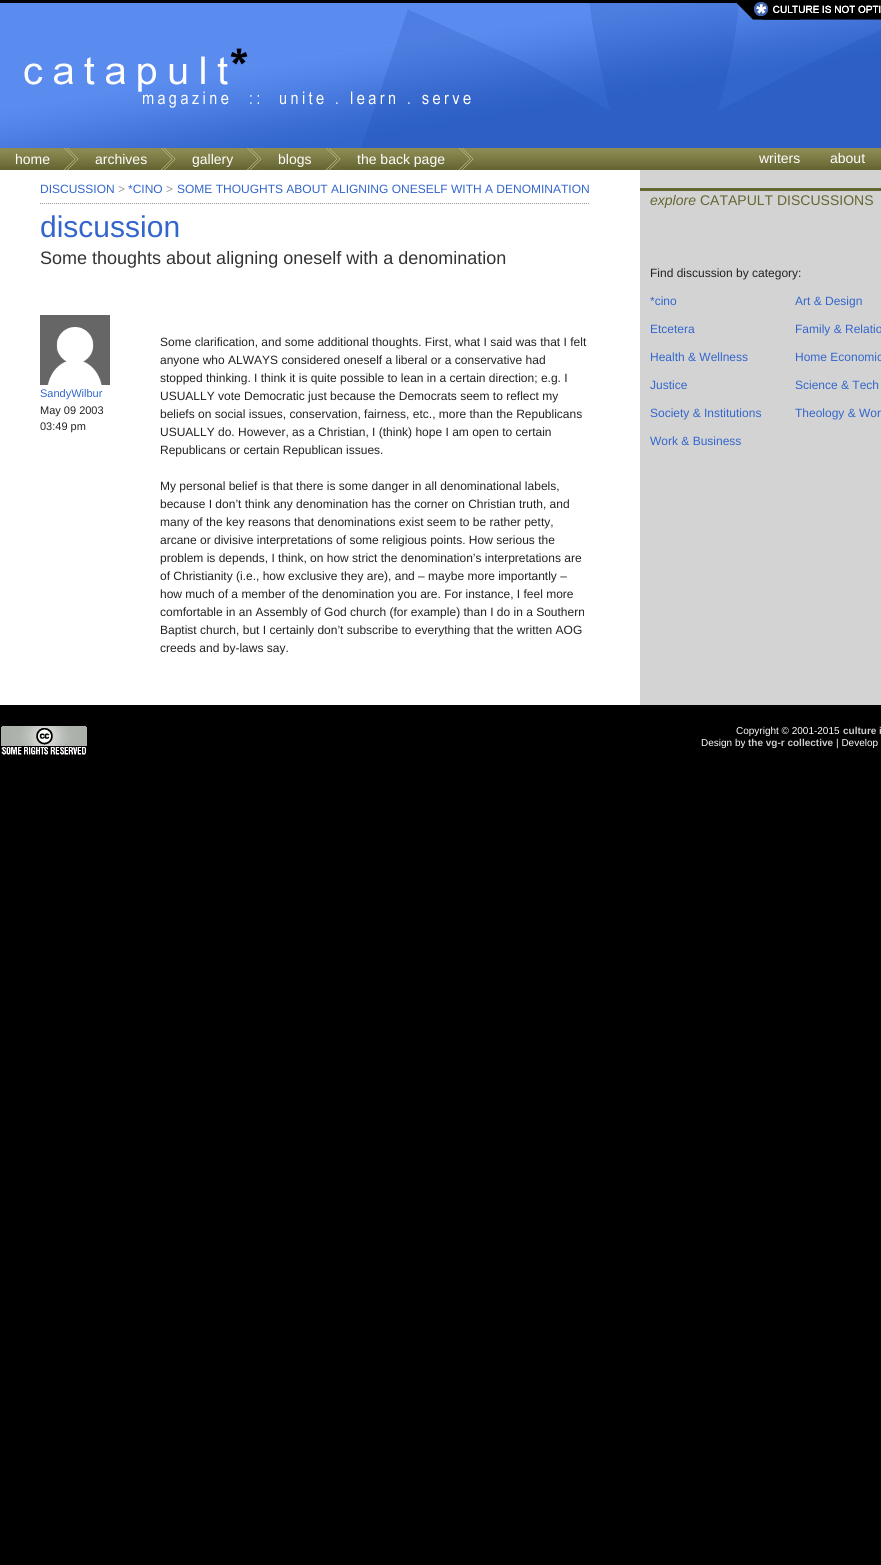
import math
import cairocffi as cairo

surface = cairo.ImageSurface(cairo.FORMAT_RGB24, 881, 1565)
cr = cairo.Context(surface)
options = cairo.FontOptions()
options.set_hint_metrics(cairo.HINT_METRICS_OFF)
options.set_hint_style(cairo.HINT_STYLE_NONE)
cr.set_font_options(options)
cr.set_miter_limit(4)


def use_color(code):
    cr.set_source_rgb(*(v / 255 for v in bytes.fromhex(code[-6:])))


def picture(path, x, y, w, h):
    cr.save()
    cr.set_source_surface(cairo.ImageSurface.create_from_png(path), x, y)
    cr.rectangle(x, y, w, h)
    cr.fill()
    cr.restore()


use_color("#000000")
cr.paint()
use_color("#ffffff")
cr.rectangle(0, 170, 640, 535)
cr.fill()
use_color("#d3d3d3")
cr.rectangle(640, 170, 241, 535)
cr.fill()
picture("img1.png", 0, 0, 881, 148)
picture("img2.png", 736, 1, 145, 19)
picture("img3.png", 24, 44, 225, 68)
use_color("#666633")
cr.rectangle(0, 167, 881, 3)
cr.fill()
picture("img4.png", 0, 148, 881, 19)
picture("img5.png", 61, 148, 18, 22)
cr.select_font_face("Liberation Sans")
cr.set_font_size(14)
use_color("#ffffff")
cr.move_to(15, 164)
cr.show_text("home")
picture("img5.png", 158, 148, 18, 22)
cr.move_to(95, 164)
cr.show_text("archives")
picture("img5.png", 244, 148, 18, 22)
cr.move_to(192, 164)
cr.show_text("gallery")
picture("img6.png", 323, 148, 18, 22)
cr.move_to(278, 164)
cr.show_text("blogs")
picture("img7.png", 455, 148, 19, 22)
cr.move_to(357, 164)
cr.show_text("the back page")
cr.move_to(759, 163)
cr.show_text("writers")
cr.move_to(830, 163)
cr.show_text("about")
cr.new_path()
cr.move_to(40, 203.5)
cr.line_to(590, 203.5)
use_color("#999999")
cr.set_line_width(1)
cr.set_dash([1, 1])
cr.stroke()
cr.set_font_size(12)
use_color("#3366cc")
cr.move_to(40, 193)
cr.show_text("DISCUSSION")
use_color("#999999")
cr.move_to(118, 193)
cr.show_text(">")
use_color("#3366cc")
cr.move_to(128, 193)
cr.show_text("*CINO")
use_color("#999999")
cr.move_to(166, 193)
cr.show_text(">")
use_color("#3366cc")
cr.move_to(177, 193)
cr.show_text("SOME THOUGHTS ABOUT ALIGNING ONESELF WITH A DENOMINATION")
cr.set_font_size(30)
cr.move_to(40, 237)
cr.show_text("discussion")
cr.set_font_size(18)
use_color("#333333")
cr.move_to(40, 264)
cr.show_text("Some thoughts about aligning oneself with a denomination")
picture("img8.png", 40, 315, 70, 70)
cr.set_font_size(11)
use_color("#3366cc")
cr.move_to(40, 397)
cr.show_text("SandyWilbur")
use_color("#222222")
cr.move_to(40, 414)
cr.show_text("May 09 2003")
cr.move_to(40, 430)
cr.show_text("03:49 pm")
cr.set_font_size(12)
cr.move_to(160, 346)
cr.show_text("Some clarification, and some additional thoughts. First, what I said was that I felt")
cr.move_to(160, 364)
cr.show_text("anyone who ALWAYS considered oneself a liberal or a conservative had")
cr.move_to(160, 382)
cr.show_text("stopped thinking. I think it is quite possible to lean in a certain direction; e.g. I")
cr.move_to(160, 400)
cr.show_text("USUALLY vote Democratic just because the Democrats seem to reflect my")
cr.move_to(160, 418)
cr.show_text("beliefs on social issues, conservation, fairness, etc., more than the Republicans")
cr.move_to(160, 436)
cr.show_text("USUALLY do. However, as a Christian, I (think) hope I am open to certain")
cr.move_to(160, 454)
cr.show_text("Republicans or certain Republican issues.")
cr.move_to(160, 490)
cr.show_text("My personal belief is that there is some danger in all denominational labels,")
cr.move_to(160, 508)
cr.show_text("because I don’t think any denomination has the corner on Christian truth, and")
cr.move_to(160, 526)
cr.show_text("many of the key reasons that denominations exist seem to be rather petty,")
cr.move_to(160, 544)
cr.show_text("arcane or divisive interpretations of some religious points. How serious the")
cr.move_to(160, 562)
cr.show_text("problem is depends, I think, on how strict the denomination’s interpretations are")
cr.move_to(160, 580)
cr.show_text("of Christianity (i.e., how exclusive they are), and – maybe more importantly –")
cr.move_to(160, 598)
cr.show_text("how much of a member of the denomination you are. For instance, I feel more")
cr.move_to(160, 616)
cr.show_text("comfortable in an Assembly of God church (for example) than I do in a Southern")
cr.move_to(160, 634)
cr.show_text("Baptist church, but I certainly don’t subscribe to everything that the written AOG")
cr.move_to(160, 652)
cr.show_text("creeds and by-laws say.")
use_color("#666633")
cr.rectangle(640, 188, 241, 3)
cr.fill()
cr.select_font_face("Liberation Sans", cairo.FONT_SLANT_ITALIC)
cr.set_font_size(14)
cr.move_to(650, 205)
cr.show_text("explore")
cr.select_font_face("Liberation Sans")
cr.move_to(700, 205)
cr.show_text("CATAPULT DISCUSSIONS")
cr.set_font_size(12)
use_color("#222222")
cr.move_to(650, 277)
cr.show_text("Find discussion by category:")
use_color("#3366cc")
cr.move_to(650, 305)
cr.show_text("*cino")
cr.move_to(795, 305)
cr.show_text("Art & Design")
cr.move_to(650, 333)
cr.show_text("Etcetera")
cr.move_to(795, 333)
cr.show_text("Family & Relatio")
cr.move_to(650, 361)
cr.show_text("Health & Wellness")
cr.move_to(795, 361)
cr.show_text("Home Economic")
cr.move_to(650, 389)
cr.show_text("Justice")
cr.move_to(795, 389)
cr.show_text("Science & Tech")
cr.move_to(650, 417)
cr.show_text("Society & Institutions")
cr.move_to(795, 417)
cr.show_text("Theology & Wor")
cr.move_to(650, 445)
cr.show_text("Work & Business")
picture("img9.png", 1, 726, 86, 29)
cr.set_font_size(10)
use_color("#ffffff")
cr.move_to(736, 734)
cr.show_text("Copyright © 2001-2015")
cr.select_font_face("Liberation Sans", cairo.FONT_SLANT_NORMAL, cairo.FONT_WEIGHT_BOLD)
use_color("#cccccc")
cr.move_to(843, 734)
cr.show_text("culture i")
cr.select_font_face("Liberation Sans")
use_color("#ffffff")
cr.move_to(701, 746)
cr.show_text("Design by")
cr.select_font_face("Liberation Sans", cairo.FONT_SLANT_NORMAL, cairo.FONT_WEIGHT_BOLD)
use_color("#cccccc")
cr.move_to(748, 746)
cr.show_text("the vg-r collective")
cr.select_font_face("Liberation Sans")
use_color("#ffffff")
cr.move_to(836, 746)
cr.show_text("| Develop")
surface.write_to_png("result.png")
